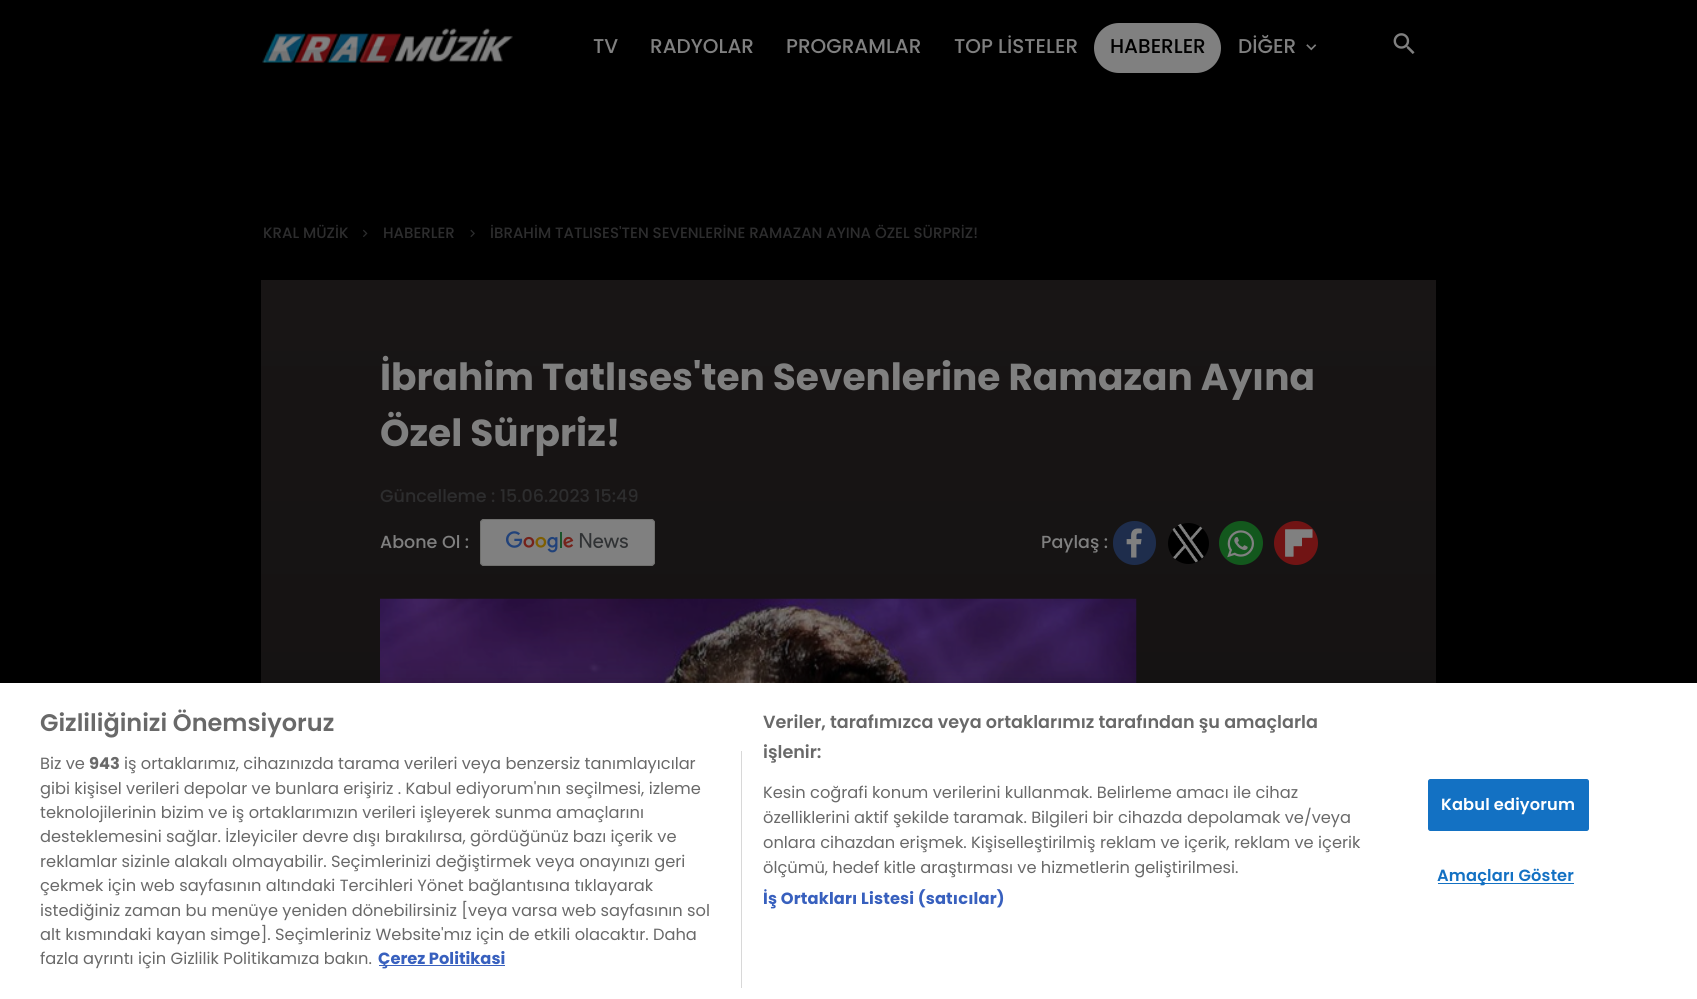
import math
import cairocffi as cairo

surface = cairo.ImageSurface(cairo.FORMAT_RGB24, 1697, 999)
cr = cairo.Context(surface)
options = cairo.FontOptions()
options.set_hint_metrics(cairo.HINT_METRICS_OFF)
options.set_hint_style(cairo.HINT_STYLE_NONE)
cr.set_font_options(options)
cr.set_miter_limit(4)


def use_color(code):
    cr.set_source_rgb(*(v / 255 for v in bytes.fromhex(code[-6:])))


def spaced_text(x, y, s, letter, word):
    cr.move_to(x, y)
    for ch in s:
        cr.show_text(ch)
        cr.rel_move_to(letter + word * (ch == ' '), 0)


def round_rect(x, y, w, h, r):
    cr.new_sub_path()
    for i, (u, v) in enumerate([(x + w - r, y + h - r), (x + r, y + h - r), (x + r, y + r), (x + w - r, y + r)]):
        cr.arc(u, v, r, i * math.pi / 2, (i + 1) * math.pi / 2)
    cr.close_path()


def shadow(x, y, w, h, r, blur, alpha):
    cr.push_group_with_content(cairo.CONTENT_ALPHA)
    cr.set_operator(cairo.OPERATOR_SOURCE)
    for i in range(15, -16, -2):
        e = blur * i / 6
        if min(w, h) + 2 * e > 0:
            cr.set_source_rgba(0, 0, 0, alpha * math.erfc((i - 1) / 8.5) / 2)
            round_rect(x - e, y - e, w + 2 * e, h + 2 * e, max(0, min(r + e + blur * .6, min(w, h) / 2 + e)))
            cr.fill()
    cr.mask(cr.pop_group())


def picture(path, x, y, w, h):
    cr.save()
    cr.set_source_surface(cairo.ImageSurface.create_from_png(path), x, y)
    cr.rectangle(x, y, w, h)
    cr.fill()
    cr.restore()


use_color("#000000")
cr.paint()
picture("img1.png", 262, 28, 251, 35)
cr.select_font_face("Poppins Medium")
cr.set_font_size(20)
use_color("#808080")
cr.move_to(593, 53)
cr.show_text("TV")
cr.move_to(650, 53)
cr.show_text("RADYOLAR")
cr.move_to(786, 53)
cr.show_text("PROGRAMLAR")
cr.move_to(954, 53)
cr.show_text("TOP LİSTELER")
round_rect(1094, 23, 127, 50, 25)
cr.fill()
use_color("#000000")
cr.move_to(1110, 53)
cr.show_text("HABERLER")
use_color("#808080")
cr.move_to(1238, 53)
cr.show_text("DİĞER")
picture("img2.png", 1306, 44, 11, 7)
picture("img3.png", 1393, 33, 22, 21)
cr.set_font_size(15)
use_color("#2d2d2e")
cr.move_to(263, 238)
cr.show_text("KRAL MÜZİK")
picture("img4.png", 363, 229, 5, 8)
cr.move_to(383, 238)
cr.show_text("HABERLER")
picture("img5.png", 470, 229, 5, 8)
cr.move_to(490, 238)
cr.show_text("İBRAHİM TATLISES'TEN SEVENLERİNE RAMAZAN AYINA ÖZEL SÜRPRİZ!")
gradient = cairo.LinearGradient(849, 280, 849, 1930)
gradient.add_color_stop_rgba(0, 0.094, 0.082, 0.082, 1)
gradient.add_color_stop_rgba(1, 0.051, 0.051, 0.051, 1)
cr.set_source(gradient)
cr.rectangle(261, 280, 1175, 403)
cr.fill()
cr.select_font_face("Poppins", cairo.FONT_SLANT_NORMAL, cairo.FONT_WEIGHT_BOLD)
cr.set_font_size(37.5)
use_color("#808080")
cr.move_to(380, 390)
cr.show_text("İbrahim Tatlıses'ten Sevenlerine Ramazan Ayına")
cr.move_to(380, 446)
cr.show_text("Özel Sürpriz!")
cr.select_font_face("Poppins Medium")
cr.set_font_size(17.5)
use_color("#2d2d2e")
cr.move_to(380, 502)
cr.show_text("Güncelleme : 15.06.2023 15:49")
use_color("#808080")
cr.move_to(380, 548)
cr.show_text("Abone Ol :")
round_rect(480, 519, 175, 47, 4)
cr.fill()
picture("img6.png", 506, 531, 122, 22)
round_rect(480.5, 519.5, 174, 46, 3.5)
use_color("#70706e")
cr.set_line_width(1)
cr.stroke()
use_color("#808080")
cr.move_to(1041, 548)
cr.show_text("Paylaş :")
use_color("#1e2d4c")
round_rect(1113, 521, 43, 44, 21.5)
cr.fill()
picture("img7.png", 1126, 528, 16, 30)
use_color("#000000")
cr.arc(1188.5, 543.5, 20.5, 0, 2 * math.pi)
cr.fill()
picture("img8.png", 1172, 523, 32, 40)
use_color("#13581d")
cr.arc(1241, 543, 22, 0, 2 * math.pi)
cr.fill()
picture("img9.png", 1227, 530, 27, 28)
use_color("#711414")
cr.arc(1296, 543, 22, 0, 2 * math.pi)
cr.fill()
picture("img10.png", 1285, 529, 28, 28)
picture("img11.png", 380, 598, 757, 85)
use_color("#000000")
shadow(0, 683, 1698, 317, 0, 11, 0.2)
use_color("#ffffff")
cr.rectangle(0, 683, 1697, 316)
cr.fill()
cr.select_font_face("Poppins SemiBold")
cr.set_font_size(24)
use_color("#696969")
cr.move_to(40, 731)
cr.show_text("Gizliliğinizi Önemsiyoruz")
cr.set_font_size(17.6)
cr.move_to(763, 728)
cr.show_text("Veriler, tarafımızca veya ortaklarımız tarafından şu amaçlarla")
cr.move_to(763, 758)
cr.show_text("işlenir:")
cr.select_font_face("Poppins")
cr.set_font_size(16.25)
cr.move_to(763, 798)
cr.show_text("Kesin coğrafi konum verilerini kullanmak. Belirleme amacı ile cihaz")
cr.move_to(763, 823)
cr.show_text("özelliklerini aktif şekilde taramak. Bilgileri bir cihazda depolamak ve/veya")
cr.move_to(763, 848)
cr.show_text("onlara cihazdan erişmek. Kişiselleştirilmiş reklam ve içerik, reklam ve içerik")
cr.move_to(763, 873)
cr.show_text("ölçümü, hedef kitle araştırması ve hizmetlerin geliştirilmesi.")
cr.select_font_face("Poppins", cairo.FONT_SLANT_NORMAL, cairo.FONT_WEIGHT_BOLD)
use_color("#3860be")
spaced_text(763, 904, "İş Ortakları Listesi (satıcılar)", 0.15, 0)
use_color("#d8d8d8")
cr.rectangle(741, 751, 1, 237)
cr.fill()
cr.select_font_face("Poppins")
use_color("#696969")
cr.move_to(40, 769)
cr.show_text("Biz ve")
cr.select_font_face("Poppins", cairo.FONT_SLANT_NORMAL, cairo.FONT_WEIGHT_BOLD)
cr.move_to(89, 769)
cr.show_text("943")
cr.select_font_face("Poppins")
cr.move_to(124, 769)
cr.show_text("iş ortaklarımız, cihazınızda tarama verileri veya benzersiz tanımlayıcılar")
cr.move_to(40, 794)
cr.show_text("gibi kişisel verileri depolar ve bunlara erişiriz . Kabul ediyorum'nın seçilmesi, izleme")
cr.move_to(40, 818)
cr.show_text("teknolojilerinin bizim ve iş ortaklarımızın verileri işleyerek sunma amaçlarını")
cr.move_to(40, 842)
cr.show_text("desteklemesini sağlar. İzleyiciler devre dışı bırakılırsa, gördüğünüz bazı içerik ve")
cr.move_to(40, 867)
cr.show_text("reklamlar sizinle alakalı olmayabilir. Seçimlerinizi değiştirmek veya onayınızı geri")
cr.move_to(40, 891)
cr.show_text("çekmek için web sayfasının altındaki Tercihleri Yönet bağlantısına tıklayarak")
cr.move_to(40, 916)
cr.show_text("istediğiniz zaman bu menüye yeniden dönebilirsiniz [veya varsa web sayfasının sol")
cr.move_to(40, 940)
cr.show_text("alt kısmındaki kayan simge]. Seçimleriniz Website'mız için de etkili olacaktır. Daha")
cr.move_to(40, 964)
cr.show_text("fazla ayrıntı için Gizlilik Politikamıza bakın.")
use_color("#3860be")
cr.rectangle(379, 965, 126, 1)
cr.fill()
cr.select_font_face("Poppins", cairo.FONT_SLANT_NORMAL, cairo.FONT_WEIGHT_BOLD)
cr.move_to(378, 964)
cr.show_text("Çerez Politikasi")
use_color("#1371c3")
round_rect(1428.5, 779.5, 160, 51, 2)
cr.fill_preserve()
cr.stroke()
cr.select_font_face("Poppins SemiBold")
use_color("#ffffff")
spaced_text(1441, 810, "Kabul ediyorum", 0.15, 0)
use_color("#1371c3")
cr.rectangle(1438, 883, 136, 1)
cr.fill()
spaced_text(1437, 881, "Amaçları Göster", 0.15, 0)
surface.write_to_png("result.png")
